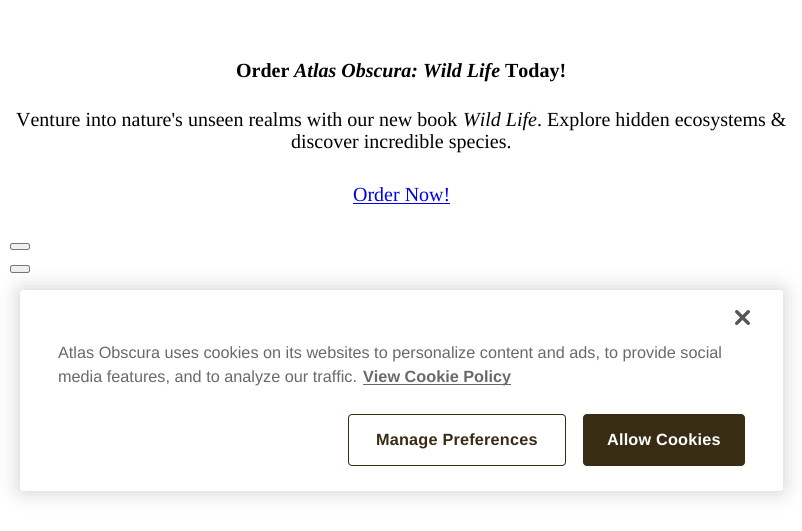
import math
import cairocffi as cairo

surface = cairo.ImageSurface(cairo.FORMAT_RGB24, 802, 531)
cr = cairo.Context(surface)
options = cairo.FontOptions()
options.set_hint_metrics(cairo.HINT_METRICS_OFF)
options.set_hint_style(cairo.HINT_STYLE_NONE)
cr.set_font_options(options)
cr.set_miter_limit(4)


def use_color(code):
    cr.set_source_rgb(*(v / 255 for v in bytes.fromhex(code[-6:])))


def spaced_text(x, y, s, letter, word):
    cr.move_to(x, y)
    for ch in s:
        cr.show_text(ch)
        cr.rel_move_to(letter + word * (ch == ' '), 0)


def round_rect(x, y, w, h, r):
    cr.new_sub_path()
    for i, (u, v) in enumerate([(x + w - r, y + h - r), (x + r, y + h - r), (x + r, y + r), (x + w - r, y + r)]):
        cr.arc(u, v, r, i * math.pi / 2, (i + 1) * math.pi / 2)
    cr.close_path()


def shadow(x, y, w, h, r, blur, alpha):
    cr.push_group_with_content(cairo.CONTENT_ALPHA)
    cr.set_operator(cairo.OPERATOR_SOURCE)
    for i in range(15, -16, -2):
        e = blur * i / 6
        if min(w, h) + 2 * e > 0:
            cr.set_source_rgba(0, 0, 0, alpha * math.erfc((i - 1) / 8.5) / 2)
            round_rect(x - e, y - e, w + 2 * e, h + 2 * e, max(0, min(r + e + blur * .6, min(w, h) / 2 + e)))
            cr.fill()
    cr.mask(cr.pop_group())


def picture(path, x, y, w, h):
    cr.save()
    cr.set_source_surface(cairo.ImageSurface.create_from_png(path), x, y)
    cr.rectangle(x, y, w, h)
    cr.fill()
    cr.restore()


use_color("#ffffff")
cr.paint()
cr.select_font_face("Liberation Serif", cairo.FONT_SLANT_NORMAL, cairo.FONT_WEIGHT_BOLD)
cr.set_font_size(20)
use_color("#000000")
cr.move_to(236, 77)
cr.show_text("Order")
cr.select_font_face("Liberation Serif", cairo.FONT_SLANT_ITALIC, cairo.FONT_WEIGHT_BOLD)
cr.move_to(294, 77)
cr.show_text("Atlas Obscura: Wild Life")
cr.select_font_face("Liberation Serif", cairo.FONT_SLANT_NORMAL, cairo.FONT_WEIGHT_BOLD)
cr.move_to(505, 77)
cr.show_text("Today!")
cr.select_font_face("Liberation Serif")
cr.move_to(16, 126)
cr.show_text("Venture into nature's unseen realms with our new book")
cr.select_font_face("Liberation Serif", cairo.FONT_SLANT_ITALIC)
cr.move_to(463, 126)
cr.show_text("Wild Life")
cr.select_font_face("Liberation Serif")
cr.move_to(537, 126)
cr.show_text(". Explore hidden ecosystems &")
cr.move_to(291, 148)
cr.show_text("discover incredible species.")
use_color("#0000ee")
cr.move_to(353, 201)
cr.show_text("Order Now!")
cr.rectangle(353, 203, 97, 1)
cr.fill()
use_color("#efefef")
round_rect(10.5, 243.5, 19, 6, 2)
cr.fill_preserve()
use_color("#767676")
cr.set_line_width(1)
cr.stroke()
use_color("#efefef")
round_rect(10.5, 265.5, 19, 7, 2)
cr.fill_preserve()
use_color("#767676")
cr.stroke()
use_color("#000000")
shadow(20, 290, 763, 201, 3, 11, 0.2)
use_color("#ffffff")
round_rect(20, 290, 763, 201, 3)
cr.fill()
picture("img1.png", 735, 310, 15, 15)
cr.select_font_face("Liberation Sans")
cr.set_font_size(16.25)
use_color("#696969")
cr.move_to(58, 358)
cr.show_text("Atlas Obscura uses cookies on its websites to personalize content and ads, to provide social")
cr.move_to(58, 382)
cr.show_text("media features, and to analyze our traffic.")
cr.rectangle(363, 384, 148, 1)
cr.fill()
cr.select_font_face("Liberation Sans", cairo.FONT_SLANT_NORMAL, cairo.FONT_WEIGHT_BOLD)
cr.move_to(363, 382)
cr.show_text("View Cookie Policy")
round_rect(348.5, 414.5, 217, 51, 3.5)
use_color("#382c14")
cr.stroke()
spaced_text(376, 445, "Manage Preferences", 0.2, 0)
round_rect(583.5, 414.5, 161, 51, 3.5)
cr.fill_preserve()
cr.stroke()
use_color("#ffffff")
spaced_text(607, 445, "Allow Cookies", 0.2, 0)
surface.write_to_png("result.png")
